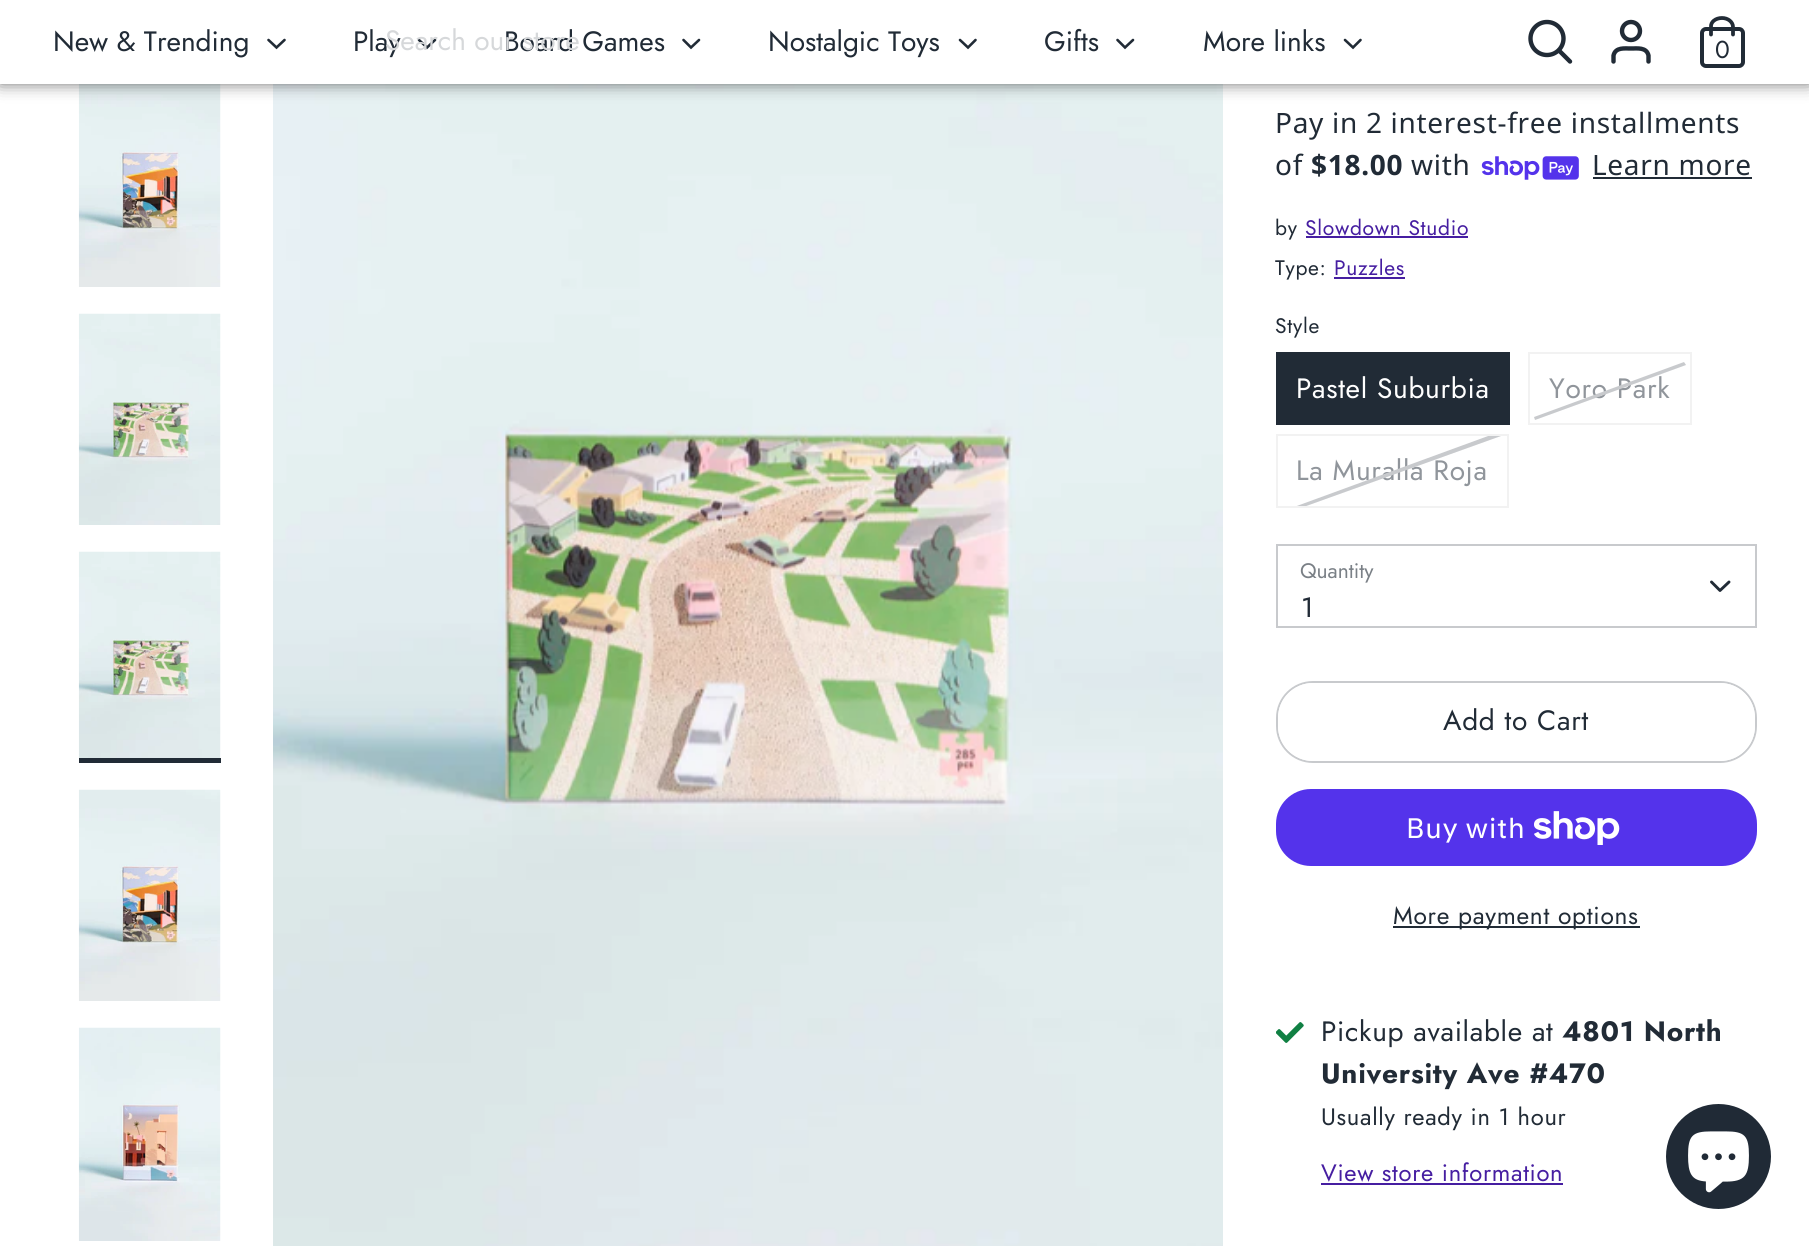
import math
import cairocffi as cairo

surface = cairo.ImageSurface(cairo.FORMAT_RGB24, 1809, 1246)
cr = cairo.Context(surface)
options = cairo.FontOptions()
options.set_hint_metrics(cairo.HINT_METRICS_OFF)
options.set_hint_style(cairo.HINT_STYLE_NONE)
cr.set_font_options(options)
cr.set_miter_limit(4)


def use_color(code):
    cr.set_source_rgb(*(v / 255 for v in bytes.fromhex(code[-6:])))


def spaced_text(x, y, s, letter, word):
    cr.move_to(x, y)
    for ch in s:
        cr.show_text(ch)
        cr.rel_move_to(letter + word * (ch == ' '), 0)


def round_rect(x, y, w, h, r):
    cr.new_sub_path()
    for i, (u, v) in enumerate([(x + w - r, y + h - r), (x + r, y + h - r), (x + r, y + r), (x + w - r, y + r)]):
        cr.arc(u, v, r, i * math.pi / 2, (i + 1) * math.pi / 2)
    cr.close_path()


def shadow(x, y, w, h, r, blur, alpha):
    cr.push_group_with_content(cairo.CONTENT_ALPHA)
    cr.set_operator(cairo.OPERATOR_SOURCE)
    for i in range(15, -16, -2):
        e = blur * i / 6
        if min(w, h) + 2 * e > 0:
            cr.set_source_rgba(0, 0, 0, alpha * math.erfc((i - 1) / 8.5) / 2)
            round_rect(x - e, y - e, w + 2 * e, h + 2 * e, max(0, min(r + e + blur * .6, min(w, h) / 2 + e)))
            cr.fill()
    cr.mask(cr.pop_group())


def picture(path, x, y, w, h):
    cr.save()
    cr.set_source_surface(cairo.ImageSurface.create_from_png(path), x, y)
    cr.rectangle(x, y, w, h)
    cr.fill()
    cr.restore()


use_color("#ffffff")
cr.paint()
picture("img1.png", 78, 84, 143, 203)
picture("img5.png", 273, 84, 950, 1162)
use_color("#000000")
shadow(0, -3, 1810, 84, 0, 9, 0.75)
use_color("#ffffff")
cr.rectangle(0, 0, 1809, 84)
cr.fill()
cr.select_font_face("Jost")
cr.set_font_size(28)
use_color("#212b36")
cr.move_to(53, 51)
cr.show_text("New & Trending")
cr.new_path()
cr.move_to(268.5, 40)
cr.line_to(276.5, 47.5)
cr.line_to(284.5, 40)
cr.set_line_width(2.6)
cr.set_line_cap(cairo.LINE_CAP_ROUND)
cr.stroke()
cr.move_to(353, 51)
cr.show_text("Play")
cr.new_path()
cr.move_to(419, 40)
cr.line_to(427, 47.5)
cr.line_to(435, 40)
cr.stroke()
cr.move_to(504, 51)
cr.show_text("Board Games")
cr.new_path()
cr.move_to(683.5, 40)
cr.line_to(691, 47.5)
cr.line_to(699, 40)
cr.stroke()
cr.move_to(768, 51)
cr.show_text("Nostalgic Toys")
cr.new_path()
cr.move_to(960, 40)
cr.line_to(968, 47.5)
cr.line_to(975.5, 40)
cr.stroke()
cr.move_to(1044, 51)
cr.show_text("Gifts")
cr.new_path()
cr.move_to(1117.5, 40)
cr.line_to(1125, 47.5)
cr.line_to(1133, 40)
cr.stroke()
cr.move_to(1203, 51)
cr.show_text("More links")
cr.new_path()
cr.move_to(1345, 40)
cr.line_to(1353, 47.5)
cr.line_to(1360.5, 40)
cr.stroke()
use_color("#d6d8da")
cr.move_to(385, 50)
cr.show_text("Search our store")
cr.new_path()
cr.arc(1547, 38.5, 16.5, 0, 2 * math.pi)
use_color("#212b36")
cr.set_line_width(4.4)
cr.set_line_cap(cairo.LINE_CAP_BUTT)
cr.stroke()
cr.new_path()
cr.move_to(1570, 61.5)
cr.line_to(1559, 50.5)
cr.set_line_cap(cairo.LINE_CAP_ROUND)
cr.stroke()
cr.new_path()
cr.move_to(1648.5, 61.5)
cr.line_to(1648.5, 55.5)
cr.curve_to(1646.5, 47, 1637.5, 48.5, 1631, 48.5)
cr.curve_to(1624.5, 48.5, 1615.5, 47, 1613.5, 55.5)
cr.line_to(1613.5, 61.5)
cr.stroke()
cr.arc(1631, 31, 9, 0, 2 * math.pi)
cr.set_line_cap(cairo.LINE_CAP_BUTT)
cr.stroke()
round_rect(1702, 29, 41, 37, 4)
cr.set_line_width(4)
cr.stroke()
cr.new_path()
cr.move_to(1711, 34.5)
cr.line_to(1711, 27)
cr.curve_to(1710.5, 22, 1715.5, 18, 1722, 18)
cr.curve_to(1728, 18, 1733, 22, 1733, 27)
cr.line_to(1733, 34.5)
cr.set_line_width(3.8)
cr.set_line_cap(cairo.LINE_CAP_ROUND)
cr.stroke()
cr.set_font_size(24.5)
cr.move_to(1715, 58)
cr.show_text("0")
picture("img2.png", 78, 313, 143, 212)
picture("img2.png", 78, 551, 143, 212)
cr.rectangle(79, 758, 142, 5)
cr.fill()
picture("img3.png", 78, 789, 143, 212)
picture("img4.png", 78, 1027, 143, 214)
cr.select_font_face("Noto Sans")
cr.set_font_size(28)
spaced_text(1275, 133, "Pay in 2 interest-free installments", 0.7, 0)
spaced_text(1275, 175, "of", 0.7, 0)
cr.select_font_face("Noto Sans", cairo.FONT_SLANT_NORMAL, cairo.FONT_WEIGHT_BOLD)
spaced_text(1311, 175, "$18.00", 0.7, 0)
cr.select_font_face("Noto Sans")
spaced_text(1411, 175, "with", 0.7, 0)
picture("img6.png", 1481, 156, 98, 24)
spaced_text(1592, 175, "Learn more", 0.7, 0)
cr.rectangle(1593, 177, 159, 2)
cr.fill()
cr.select_font_face("Jost")
cr.set_font_size(21)
spaced_text(1275, 235, "by", 0.7, 0)
use_color("#461ea1")
spaced_text(1305, 235, "Slowdown Studio", 0.7, 0)
cr.rectangle(1306, 236, 162, 2)
cr.fill()
use_color("#212b36")
spaced_text(1275, 275, "Type:", 0.7, 0)
use_color("#461ea1")
spaced_text(1334, 275, "Puzzles", 0.7, 0)
cr.rectangle(1334, 277, 71, 2)
cr.fill()
use_color("#212b36")
spaced_text(1275, 333, "Style", 0.7, 0)
cr.rectangle(1276, 352, 234, 73)
cr.fill()
cr.set_font_size(28)
use_color("#ffffff")
spaced_text(1296, 398, "Pastel Suburbia", 0.7, 0)
cr.rectangle(1529, 353, 162, 71)
use_color("#f2f2f2")
cr.set_line_width(2)
cr.set_line_cap(cairo.LINE_CAP_BUTT)
cr.stroke()
use_color("#90959b")
spaced_text(1549, 398, "Yoro Park", 0.7, 0)
use_color("#c8cacd")
cr.new_path()
cr.move_to(1534, 417)
cr.line_to(1684, 362)
cr.line_to(1686, 365)
cr.line_to(1535, 420)
cr.close_path()
cr.fill()
cr.rectangle(1277, 435, 231, 72)
use_color("#f2f2f2")
cr.stroke()
use_color("#90959b")
spaced_text(1296, 480, "La Muralla Roja", 0.7, 0)
cr.save()
cr.rectangle(1278, 436, 229, 70)
cr.clip()
use_color("#c8cacd")
cr.new_path()
cr.move_to(1283, 511)
cr.line_to(1499, 432)
cr.line_to(1501, 436)
cr.line_to(1284, 514)
cr.close_path()
cr.fill()
cr.restore()
cr.rectangle(1277, 545, 479, 82)
use_color("#c8cacd")
cr.stroke()
cr.set_font_size(21)
use_color("#7a8086")
cr.move_to(1300, 578)
cr.show_text("Quantity")
cr.new_path()
cr.move_to(1711.5, 582)
cr.line_to(1720, 590.5)
cr.line_to(1729, 582)
use_color("#212b36")
cr.set_line_width(2.9)
cr.set_line_cap(cairo.LINE_CAP_ROUND)
cr.set_line_join(cairo.LINE_JOIN_ROUND)
cr.stroke()
cr.set_font_size(28)
spaced_text(1301, 617, "1", 0.7, 0)
round_rect(1277, 682, 479, 80, 36)
use_color("#c8cacd")
cr.set_line_width(2)
cr.set_line_cap(cairo.LINE_CAP_BUTT)
cr.set_line_join(cairo.LINE_JOIN_MITER)
cr.stroke()
use_color("#ffffff")
round_rect(1278, 683, 477, 78, 35)
cr.fill()
use_color("#212b36")
spaced_text(1443, 730, "Add to Cart", 0.7, 0)
use_color("#5433eb")
round_rect(1276, 789, 481, 77, 35)
cr.fill()
cr.select_font_face("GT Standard")
use_color("#ffffff")
spaced_text(1406, 838, "Buy with", 0.7, 0)
picture("img7.png", 1534, 811, 86, 34)
use_color("#212b36")
cr.rectangle(1393, 926, 247, 2)
cr.fill()
cr.select_font_face("Jost")
cr.set_font_size(24.5)
spaced_text(1393, 924, "More payment options", 0.7, 0)
picture("img8.png", 1276, 1022, 28, 21)
cr.set_font_size(28)
spaced_text(1321, 1041, "Pickup available at", 0.7, 0)
cr.select_font_face("Jost", cairo.FONT_SLANT_NORMAL, cairo.FONT_WEIGHT_BOLD)
spaced_text(1562, 1041, "4801 North", 0.7, 0)
spaced_text(1321, 1083, "University Ave #470", 0.7, 0)
cr.select_font_face("Jost")
cr.set_font_size(23.75)
spaced_text(1321, 1125, "Usually ready in 1 hour", 0.7, 0)
use_color("#461ea1")
spaced_text(1321, 1181, "View store information", 0.7, 0)
cr.rectangle(1321, 1183, 242, 2)
cr.fill()
use_color("#202a36")
cr.arc(1718.5, 1156.5, 52.5, 0, 2 * math.pi)
cr.fill()
picture("img9.png", 1688, 1131, 61, 62)
surface.write_to_png("result.png")
